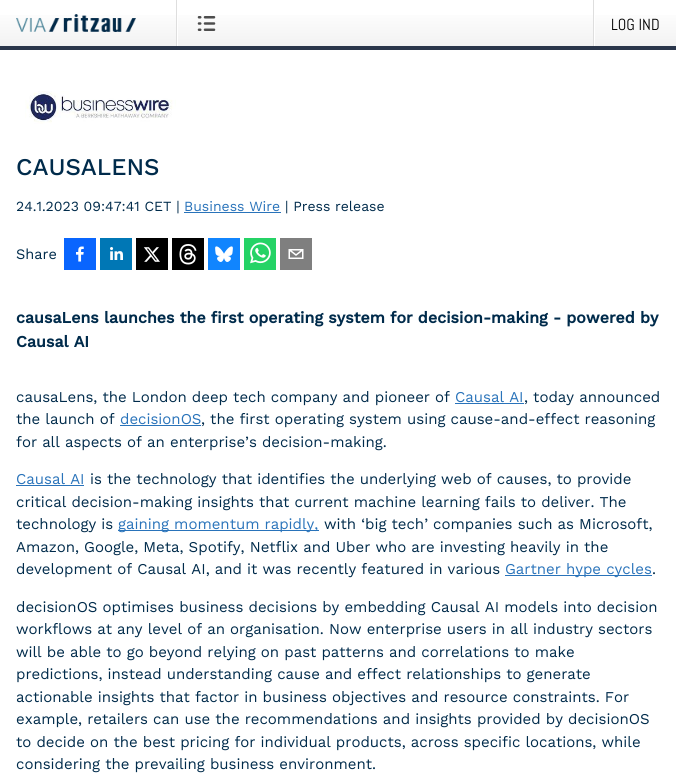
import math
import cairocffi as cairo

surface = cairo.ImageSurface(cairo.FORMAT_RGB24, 676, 773)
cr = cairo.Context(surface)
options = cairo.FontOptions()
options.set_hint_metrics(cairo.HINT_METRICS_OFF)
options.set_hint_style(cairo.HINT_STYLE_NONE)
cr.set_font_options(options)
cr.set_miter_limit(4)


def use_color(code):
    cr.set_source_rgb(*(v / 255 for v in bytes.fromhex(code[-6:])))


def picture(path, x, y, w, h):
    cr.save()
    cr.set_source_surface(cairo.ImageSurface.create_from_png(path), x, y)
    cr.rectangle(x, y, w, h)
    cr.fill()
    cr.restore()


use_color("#ffffff")
cr.paint()
gradient = cairo.LinearGradient(338, 0, 338, 46)
gradient.add_color_stop_rgba(0.16, 1, 1, 1, 1)
gradient.add_color_stop_rgba(1, 0.949, 0.949, 0.949, 1)
cr.set_source(gradient)
cr.rectangle(0, 15, 676, 31)
cr.fill()
use_color("#2a364b")
cr.rectangle(0, 46, 676, 4)
cr.fill()
picture("img1.png", 16, 14, 120, 18)
use_color("#ffffff")
cr.rectangle(177, 15, 1, 31)
cr.fill()
use_color("#dedede")
cr.rectangle(176, 0, 1, 46)
cr.fill()
picture("img2.png", 197, 16, 19, 15)
use_color("#ffffff")
cr.rectangle(594, 15, 1, 31)
cr.fill()
use_color("#dedede")
cr.rectangle(593, 0, 1, 46)
cr.fill()
cr.select_font_face("Abel")
cr.set_font_size(16)
use_color("#000000")
cr.move_to(611, 30)
cr.show_text("LOG IND")
picture("img3.png", 25, 91, 151, 33)
cr.select_font_face("Work Sans Medium")
cr.set_font_size(24)
use_color("#002b4b")
cr.move_to(16, 175)
cr.show_text("CAUSALENS")
cr.select_font_face("Work Sans")
cr.set_font_size(14)
cr.move_to(16, 211)
cr.show_text("24.1.2023 09:47:41 CET |")
use_color("#2973ba")
cr.move_to(184, 211)
cr.show_text("Business Wire")
cr.rectangle(184, 212, 97, 1)
cr.fill()
use_color("#002b4b")
cr.move_to(285, 211)
cr.show_text("| Press release")
cr.set_font_size(14.5)
cr.move_to(16, 259)
cr.show_text("Share")
picture("img4.png", 64, 238, 32, 32)
picture("img5.png", 100, 238, 32, 32)
picture("img6.png", 136, 238, 32, 32)
picture("img7.png", 172, 238, 32, 32)
picture("img8.png", 208, 238, 32, 32)
picture("img9.png", 244, 238, 32, 32)
picture("img10.png", 280, 238, 32, 32)
cr.select_font_face("Work Sans", cairo.FONT_SLANT_NORMAL, cairo.FONT_WEIGHT_BOLD)
cr.set_font_size(16)
cr.move_to(16, 323)
cr.show_text("causaLens launches the first operating system for decision-making - powered by")
cr.move_to(16, 347)
cr.show_text("Causal AI")
cr.select_font_face("Work Sans")
cr.set_font_size(15)
cr.move_to(16, 402)
cr.show_text("causaLens, the London deep tech company and pioneer of")
use_color("#2973ba")
cr.move_to(455, 402)
cr.show_text("Causal AI")
cr.rectangle(455, 403, 69, 1)
cr.fill()
use_color("#002b4b")
cr.move_to(524, 402)
cr.show_text(", today announced")
cr.move_to(16, 424)
cr.show_text("the launch of")
use_color("#2973ba")
cr.move_to(120, 424)
cr.show_text("decisionOS")
cr.rectangle(120, 425, 81, 1)
cr.fill()
use_color("#002b4b")
cr.move_to(201, 424)
cr.show_text(", the first operating system using cause-and-effect reasoning")
cr.move_to(16, 447)
cr.show_text("for all aspects of an enterprise’s decision-making.")
use_color("#2973ba")
cr.move_to(16, 484)
cr.show_text("Causal AI")
cr.rectangle(16, 485, 68, 1)
cr.fill()
use_color("#002b4b")
cr.move_to(90, 484)
cr.show_text("is the technology that identifies the underlying web of causes, to provide")
cr.move_to(16, 507)
cr.show_text("critical decision-making insights that current machine learning fails to deliver. The")
cr.move_to(16, 529)
cr.show_text("technology is")
use_color("#2973ba")
cr.rectangle(118, 530, 201, 1)
cr.fill()
cr.move_to(118, 529)
cr.show_text("gaining momentum rapidly,")
use_color("#002b4b")
cr.move_to(324, 529)
cr.show_text("with ‘big tech’ companies such as Microsoft,")
cr.move_to(16, 552)
cr.show_text("Amazon, Google, Meta, Spotify, Netflix and Uber who are investing heavily in the")
cr.move_to(16, 574)
cr.show_text("development of Causal AI, and it was recently featured in various")
use_color("#2973ba")
cr.rectangle(505, 575, 147, 1)
cr.fill()
cr.move_to(505, 574)
cr.show_text("Gartner hype cycles")
use_color("#002b4b")
cr.move_to(652, 574)
cr.show_text(".")
cr.move_to(16, 612)
cr.show_text("decisionOS optimises business decisions by embedding Causal AI models into decision")
cr.move_to(16, 634)
cr.show_text("workflows at any level of an organisation. Now enterprise users in all industry sectors")
cr.move_to(16, 657)
cr.show_text("will be able to go beyond relying on past patterns and correlations to make")
cr.move_to(16, 679)
cr.show_text("predictions, instead understanding cause and effect relationships to generate")
cr.move_to(16, 702)
cr.show_text("actionable insights that factor in business objectives and resource constraints. For")
cr.move_to(16, 724)
cr.show_text("example, retailers can use the recommendations and insights provided by decisionOS")
cr.move_to(16, 747)
cr.show_text("to decide on the best pricing for individual products, across specific locations, while")
cr.move_to(16, 769)
cr.show_text("considering the prevailing business environment.")
surface.write_to_png("result.png")
